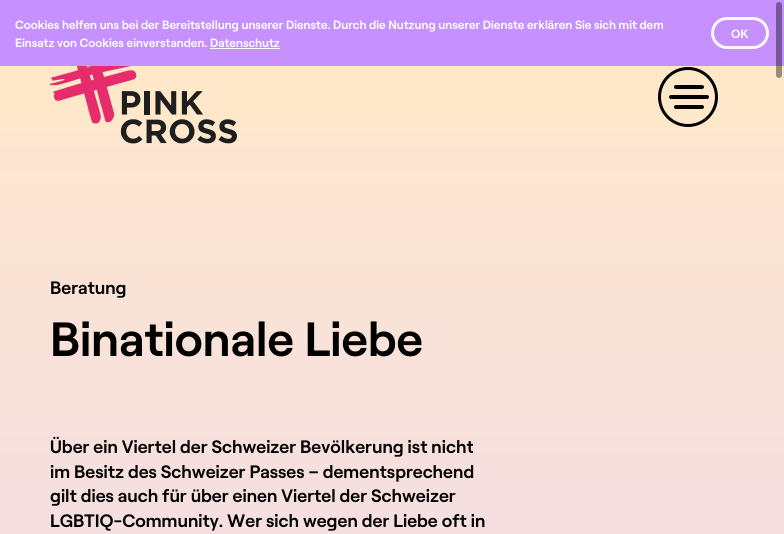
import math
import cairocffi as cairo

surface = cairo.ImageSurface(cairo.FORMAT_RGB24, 784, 534)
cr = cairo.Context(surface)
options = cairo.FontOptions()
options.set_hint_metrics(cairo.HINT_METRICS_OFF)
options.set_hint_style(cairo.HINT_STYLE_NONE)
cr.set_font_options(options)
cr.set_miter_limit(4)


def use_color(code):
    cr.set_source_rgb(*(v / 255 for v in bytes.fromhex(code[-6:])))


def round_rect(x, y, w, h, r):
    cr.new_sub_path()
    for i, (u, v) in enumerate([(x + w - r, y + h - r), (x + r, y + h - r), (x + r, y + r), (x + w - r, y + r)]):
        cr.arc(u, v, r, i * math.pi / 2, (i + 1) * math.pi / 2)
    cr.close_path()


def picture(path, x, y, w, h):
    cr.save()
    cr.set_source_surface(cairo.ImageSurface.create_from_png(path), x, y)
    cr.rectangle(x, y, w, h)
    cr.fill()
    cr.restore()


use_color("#ffffff")
cr.paint()
use_color("#c691ff")
cr.rectangle(0, 0, 784, 66)
cr.fill()
cr.select_font_face("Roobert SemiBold")
cr.set_font_size(12)
use_color("#ffffff")
cr.move_to(15, 29)
cr.show_text("Cookies helfen uns bei der Bereitstellung unserer Dienste. Durch die Nutzung unserer Dienste erklären Sie sich mit dem")
cr.move_to(15, 47)
cr.show_text("Einsatz von Cookies einverstanden. Datenschutz")
cr.rectangle(210, 48, 70, 1)
cr.fill()
round_rect(712.5, 18.5, 55, 29, 14.5)
use_color("#f8f9fa")
cr.set_line_width(3)
cr.stroke()
use_color("#ffffff")
cr.move_to(731, 38)
cr.show_text("OK")
gradient = cairo.LinearGradient(392, 0, 392, 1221)
gradient.add_color_stop_rgba(0, 1, 0.91, 0.788, 1)
gradient.add_color_stop_rgba(1, 0.91, 0.827, 1, 1)
cr.set_source(gradient)
cr.rectangle(0, 66, 784, 468)
cr.fill()
gradient = cairo.LinearGradient(392, 0, 392, 160)
gradient.add_color_stop_rgba(0, 1, 0.91, 0.788, 1)
gradient.add_color_stop_rgba(0.75, 1, 0.91, 0.788, 0.75)
gradient.add_color_stop_rgba(1, 1, 0.91, 0.788, 0)
cr.set_source(gradient)
cr.rectangle(0, 66, 784, 73)
cr.fill()
picture("img1.png", 50, 66, 187, 78)
cr.arc(688, 97, 28.5, 0, 2 * math.pi)
use_color("#000000")
cr.stroke()
round_rect(669, 95, 40, 4, 2)
cr.fill()
round_rect(674, 85, 30, 4, 2)
cr.fill()
round_rect(674, 105, 30, 4, 2)
cr.fill()
cr.set_font_size(18)
cr.move_to(50, 294)
cr.show_text("Beratung")
cr.set_font_size(48)
cr.move_to(50, 356)
cr.show_text("Binationale Liebe")
cr.set_font_size(18)
cr.move_to(50, 453)
cr.show_text("Über ein Viertel der Schweizer Bevölkerung ist nicht")
cr.move_to(50, 478)
cr.show_text("im Besitz des Schweizer Passes – dementsprechend")
cr.move_to(50, 502)
cr.show_text("gilt dies auch für über einen Viertel der Schweizer")
cr.move_to(50, 527)
cr.show_text("LGBTIQ-Community. Wer sich wegen der Liebe oft in")
cr.set_source_rgba(0, 0, 0, 0.4)
round_rect(776, 2, 6, 76, 3)
cr.fill()
surface.write_to_png("result.png")
